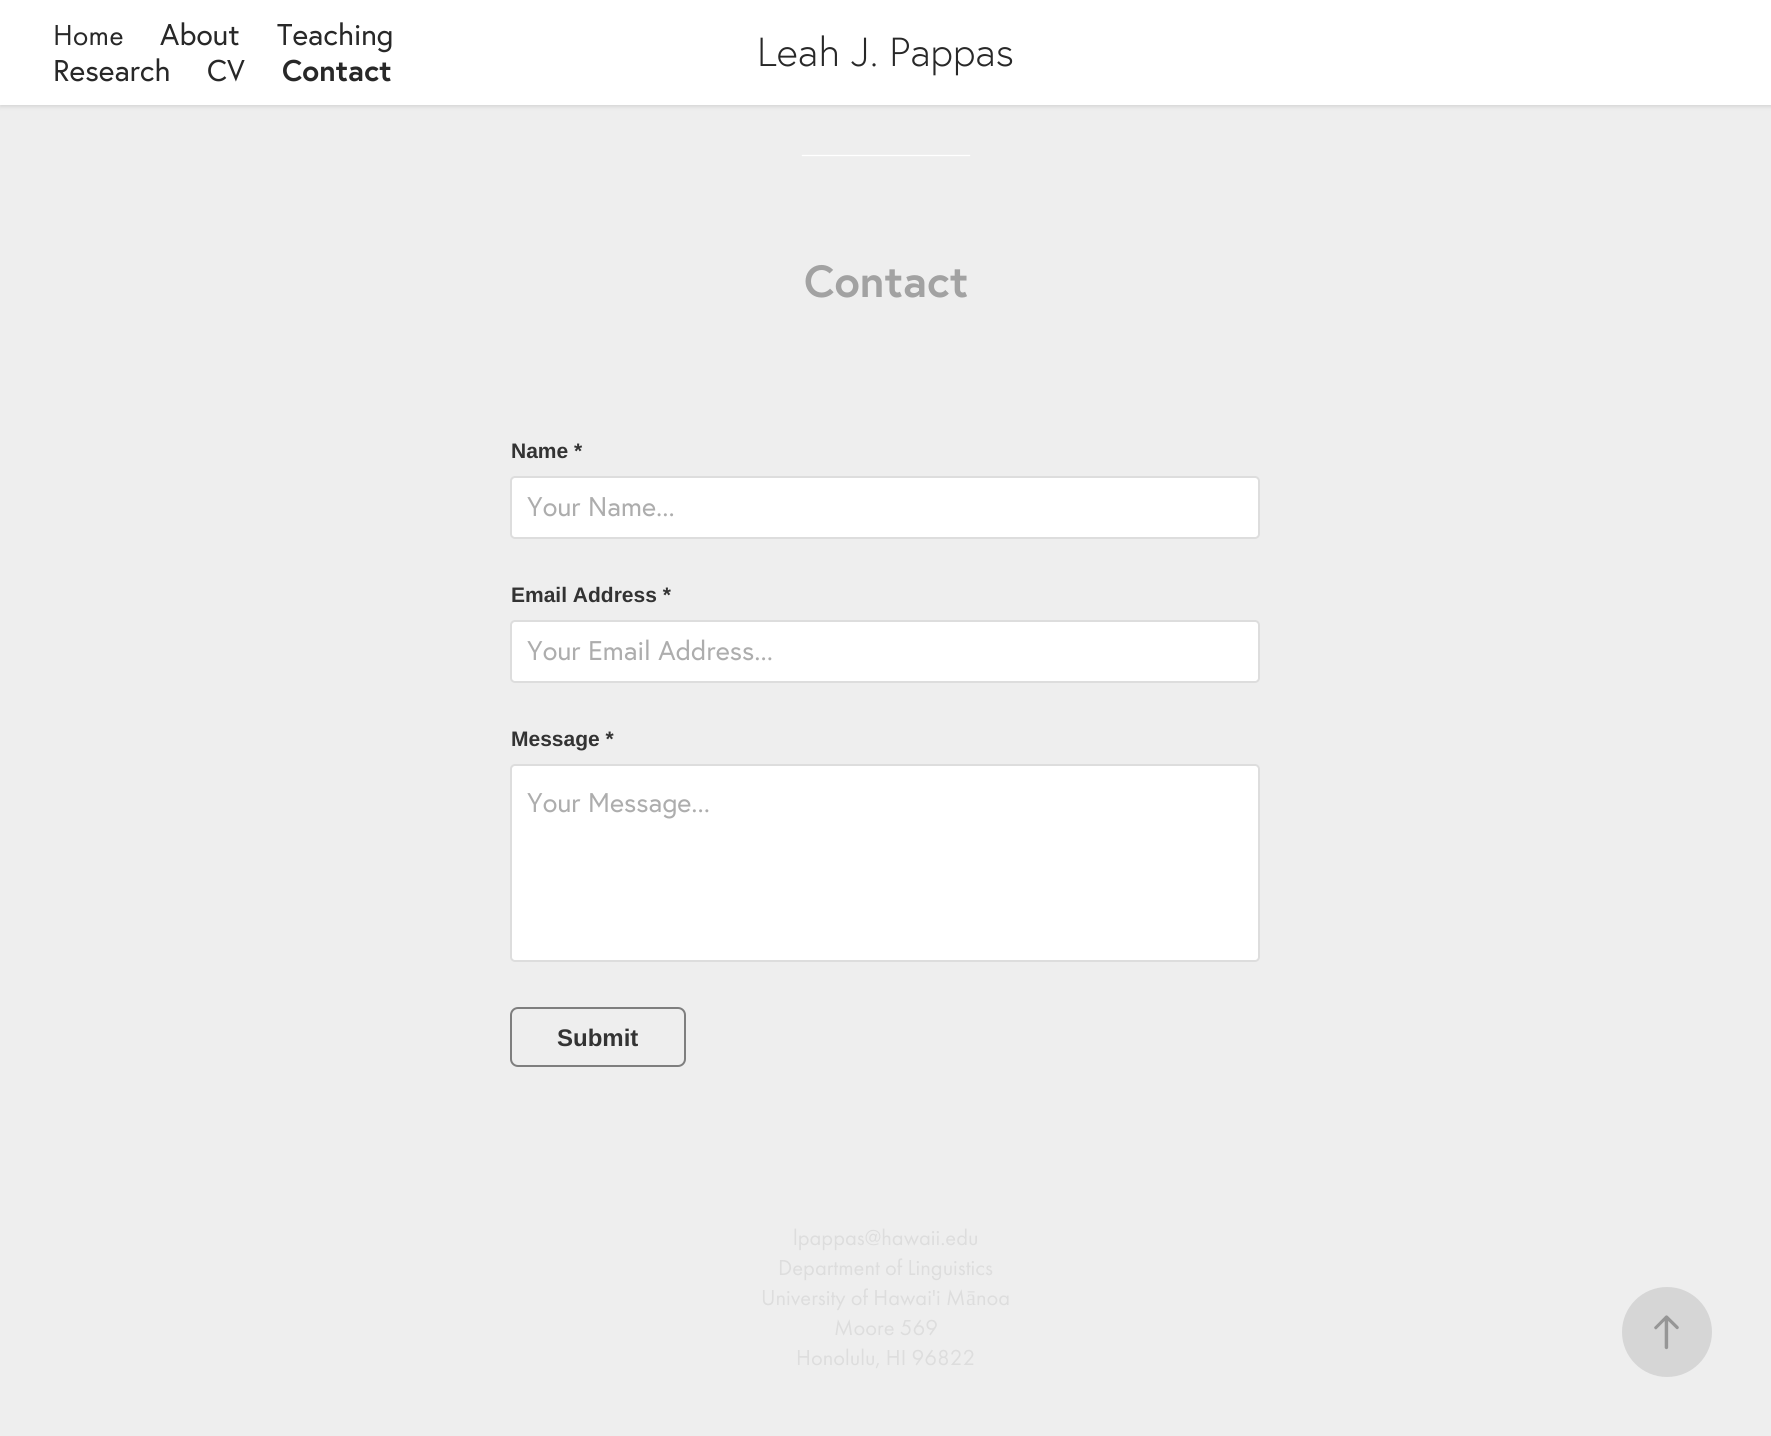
import math
import cairocffi as cairo

surface = cairo.ImageSurface(cairo.FORMAT_RGB24, 1771, 1436)
cr = cairo.Context(surface)
options = cairo.FontOptions()
options.set_hint_metrics(cairo.HINT_METRICS_OFF)
options.set_hint_style(cairo.HINT_STYLE_NONE)
cr.set_font_options(options)
cr.set_miter_limit(4)


def use_color(code):
    cr.set_source_rgb(*(v / 255 for v in bytes.fromhex(code[-6:])))


def round_rect(x, y, w, h, r):
    cr.new_sub_path()
    for i, (u, v) in enumerate([(x + w - r, y + h - r), (x + r, y + h - r), (x + r, y + r), (x + w - r, y + r)]):
        cr.arc(u, v, r, i * math.pi / 2, (i + 1) * math.pi / 2)
    cr.close_path()


def shadow(x, y, w, h, r, blur, alpha):
    cr.push_group_with_content(cairo.CONTENT_ALPHA)
    cr.set_operator(cairo.OPERATOR_SOURCE)
    for i in range(15, -16, -2):
        e = blur * i / 6
        if min(w, h) + 2 * e > 0:
            cr.set_source_rgba(0, 0, 0, alpha * math.erfc((i - 1) / 8.5) / 2)
            round_rect(x - e, y - e, w + 2 * e, h + 2 * e, max(0, min(r + e + blur * .6, min(w, h) / 2 + e)))
            cr.fill()
    cr.mask(cr.pop_group())


def picture(path, x, y, w, h):
    cr.save()
    cr.set_source_surface(cairo.ImageSurface.create_from_png(path), x, y)
    cr.rectangle(x, y, w, h)
    cr.fill()
    cr.restore()


use_color("#eeeeee")
cr.paint()
use_color("#000000")
shadow(0, 2, 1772, 105, 0, 2, 0.1)
use_color("#ffffff")
cr.rectangle(0, 0, 1771, 105)
cr.fill()
cr.select_font_face("Futura PT")
cr.set_font_size(30)
use_color("#282828")
cr.move_to(53, 45)
cr.show_text("Home")
cr.select_font_face("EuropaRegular")
cr.move_to(160, 45)
cr.show_text("About")
cr.move_to(277, 45)
cr.show_text("Teaching")
cr.move_to(53, 81)
cr.show_text("Research")
cr.move_to(207, 81)
cr.show_text("CV")
cr.select_font_face("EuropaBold", cairo.FONT_SLANT_NORMAL, cairo.FONT_WEIGHT_BOLD)
cr.move_to(282, 81)
cr.show_text("Contact")
cr.select_font_face("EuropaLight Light")
cr.set_font_size(40.5)
cr.move_to(757, 66)
cr.show_text("Leah J. Pappas")
cr.select_font_face("Liberation Serif")
cr.set_font_size(24)
use_color("#ffffff")
cr.move_to(802, 153)
cr.show_text("______________")
cr.select_font_face("EuropaBold", cairo.FONT_SLANT_NORMAL, cairo.FONT_WEIGHT_BOLD)
cr.set_font_size(45)
use_color("#a2a2a2")
cr.move_to(804, 297)
cr.show_text("Contact")
cr.select_font_face("Liberation Sans", cairo.FONT_SLANT_NORMAL, cairo.FONT_WEIGHT_BOLD)
cr.set_font_size(21)
use_color("#333333")
cr.move_to(511, 458)
cr.show_text("Name *")
use_color("#ffffff")
round_rect(511, 477, 748, 61, 4)
cr.fill_preserve()
use_color("#dddddd")
cr.stroke()
cr.select_font_face("EuropaRegular")
cr.set_font_size(27)
use_color("#adadad")
cr.move_to(527, 516)
cr.show_text("Your Name...")
cr.select_font_face("Liberation Sans", cairo.FONT_SLANT_NORMAL, cairo.FONT_WEIGHT_BOLD)
cr.set_font_size(21)
use_color("#333333")
cr.move_to(511, 602)
cr.show_text("Email Address *")
use_color("#ffffff")
round_rect(511, 621, 748, 61, 4)
cr.fill_preserve()
use_color("#dddddd")
cr.stroke()
cr.select_font_face("EuropaRegular")
cr.set_font_size(27)
use_color("#adadad")
cr.move_to(527, 660)
cr.show_text("Your Email Address...")
cr.select_font_face("Liberation Sans", cairo.FONT_SLANT_NORMAL, cairo.FONT_WEIGHT_BOLD)
cr.set_font_size(21)
use_color("#333333")
cr.move_to(511, 746)
cr.show_text("Message *")
use_color("#ffffff")
round_rect(511, 765, 748, 196, 4)
cr.fill_preserve()
use_color("#dddddd")
cr.stroke()
cr.select_font_face("EuropaRegular")
cr.set_font_size(27)
use_color("#adadad")
cr.move_to(527, 812)
cr.show_text("Your Message...")
round_rect(511, 1008, 174, 58, 7)
use_color("#7e7e7e")
cr.stroke()
cr.select_font_face("Liberation Sans", cairo.FONT_SLANT_NORMAL, cairo.FONT_WEIGHT_BOLD)
cr.set_font_size(24)
use_color("#333333")
cr.move_to(557, 1046)
cr.show_text("Submit")
use_color("#d6d6d6")
cr.new_path()
cr.arc(1667, 1332, 45, 0, 2 * math.pi)
cr.fill()
picture("img1.png", 1654, 1315, 25, 35)
cr.select_font_face("Futura PT")
cr.set_font_size(22.5)
use_color("#dddddd")
cr.move_to(793, 1245)
cr.show_text("lpappas@hawaii.edu")
cr.move_to(778, 1275)
cr.show_text("Department of Linguistics")
cr.move_to(761, 1305)
cr.show_text("University of Hawai'i M")
cr.select_font_face("Liberation Serif")
cr.move_to(966, 1305)
cr.show_text("ā")
cr.select_font_face("Futura PT")
cr.move_to(976, 1305)
cr.show_text("noa")
cr.move_to(834, 1335)
cr.show_text("Moore 569")
cr.move_to(796, 1365)
cr.show_text("Honolulu, HI 96822")
surface.write_to_png("result.png")
